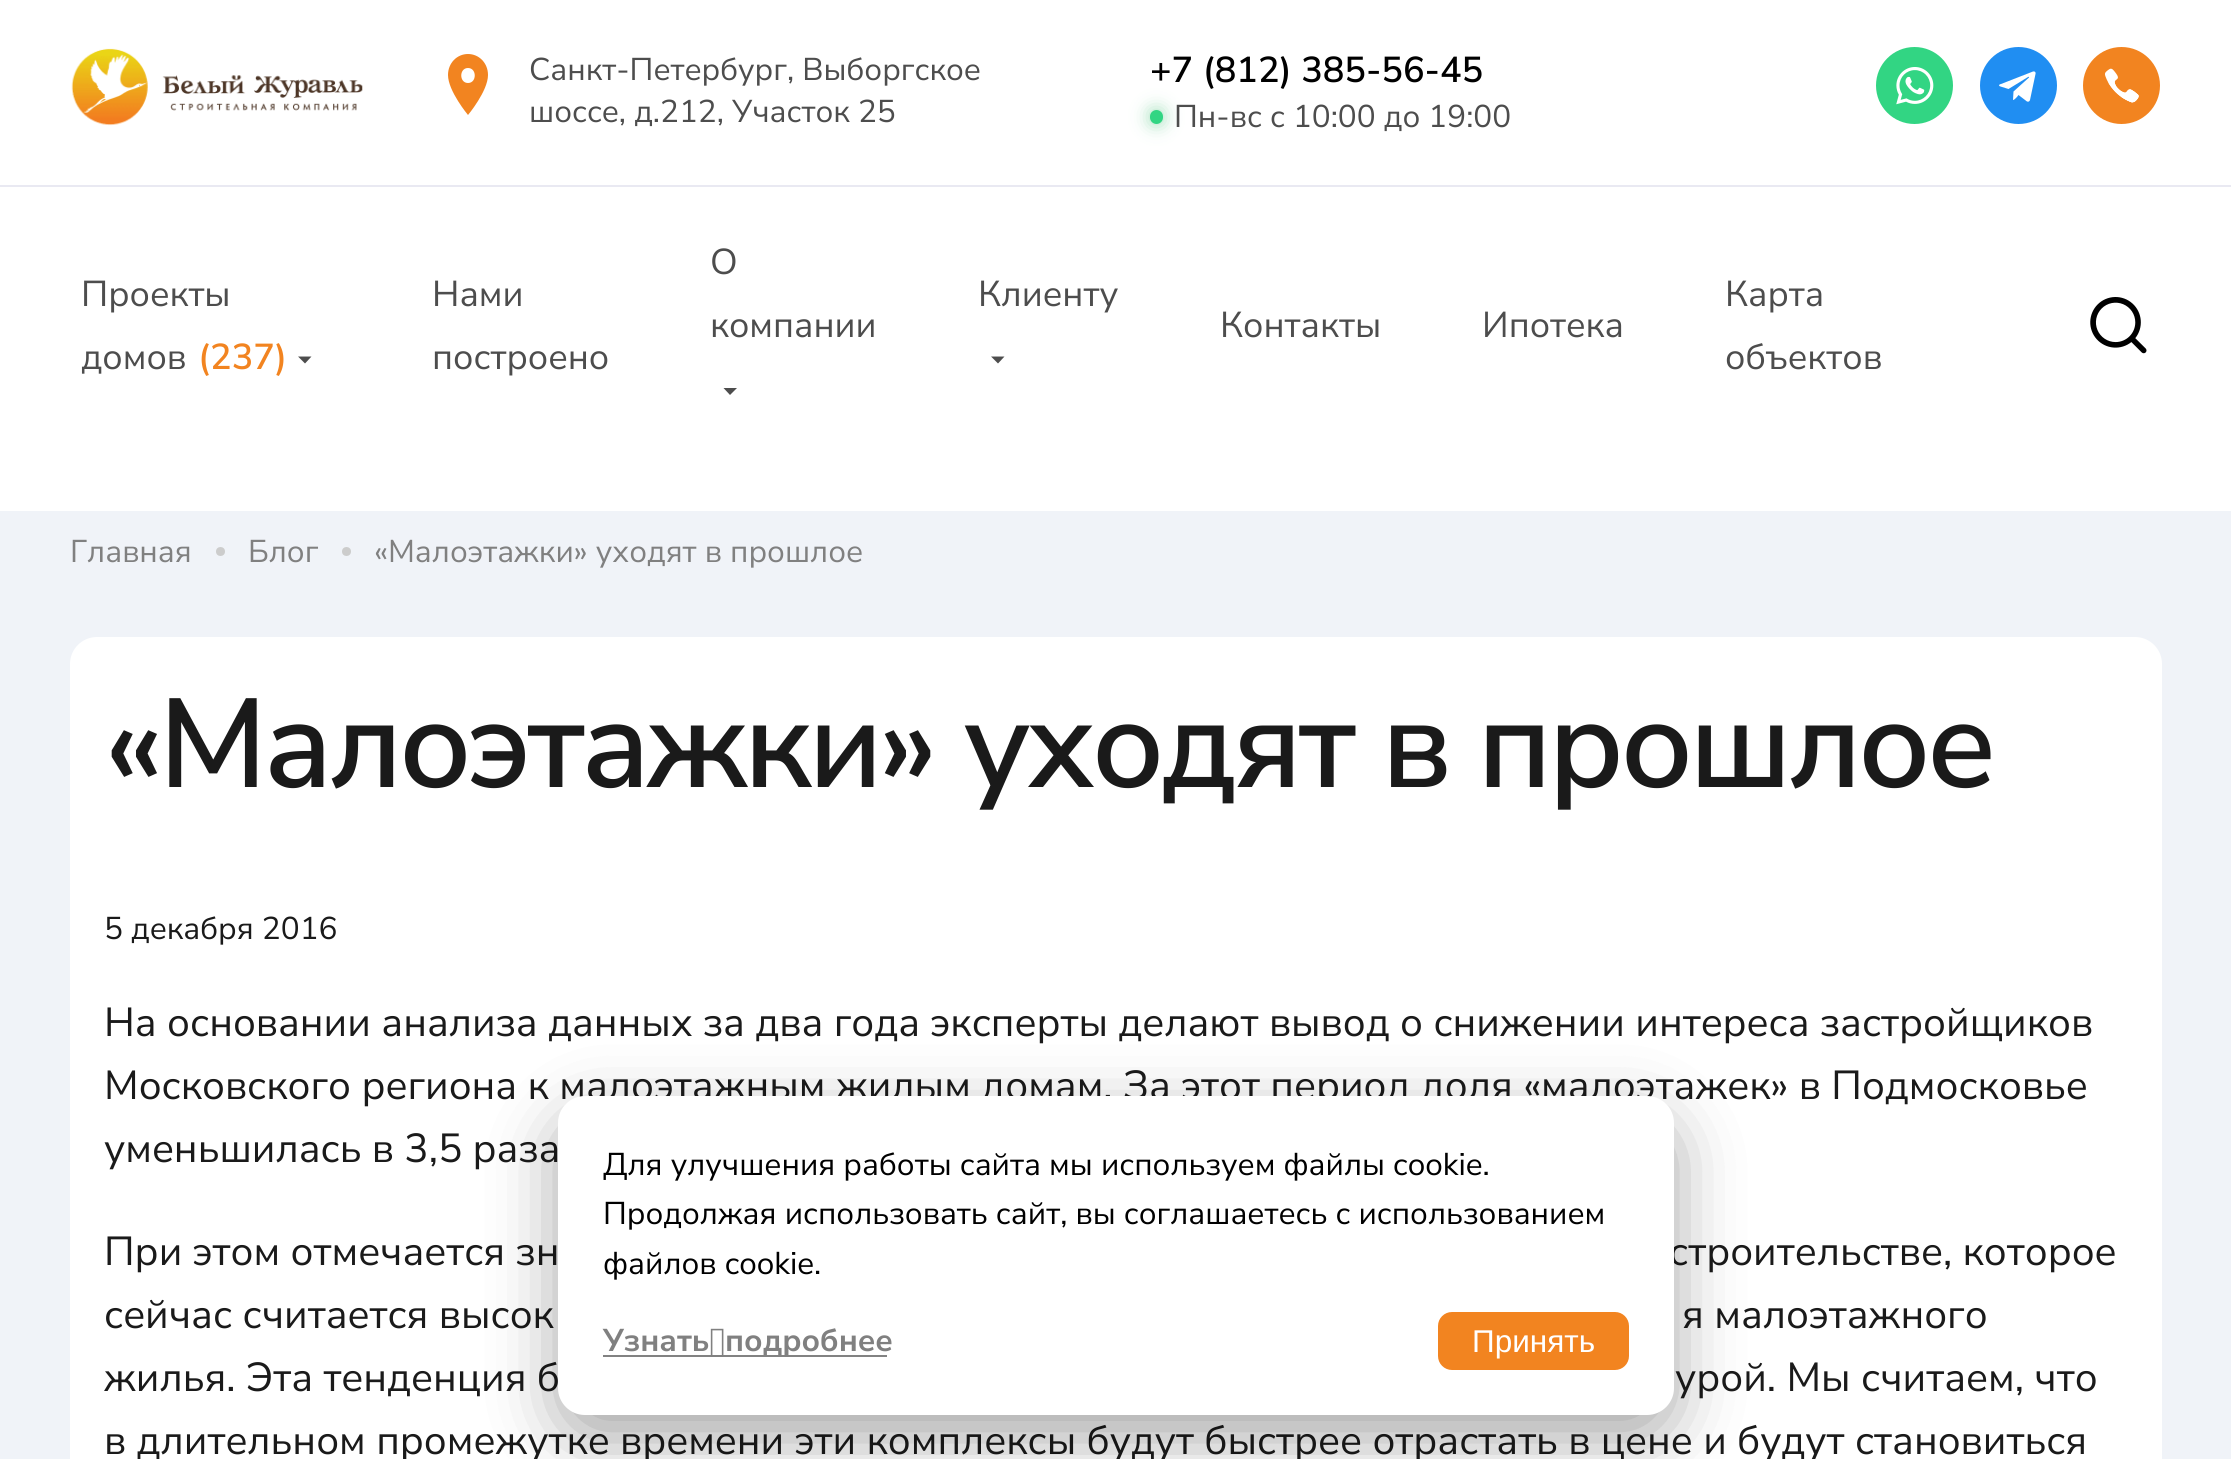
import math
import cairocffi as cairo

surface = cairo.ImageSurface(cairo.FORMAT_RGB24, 2231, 1459)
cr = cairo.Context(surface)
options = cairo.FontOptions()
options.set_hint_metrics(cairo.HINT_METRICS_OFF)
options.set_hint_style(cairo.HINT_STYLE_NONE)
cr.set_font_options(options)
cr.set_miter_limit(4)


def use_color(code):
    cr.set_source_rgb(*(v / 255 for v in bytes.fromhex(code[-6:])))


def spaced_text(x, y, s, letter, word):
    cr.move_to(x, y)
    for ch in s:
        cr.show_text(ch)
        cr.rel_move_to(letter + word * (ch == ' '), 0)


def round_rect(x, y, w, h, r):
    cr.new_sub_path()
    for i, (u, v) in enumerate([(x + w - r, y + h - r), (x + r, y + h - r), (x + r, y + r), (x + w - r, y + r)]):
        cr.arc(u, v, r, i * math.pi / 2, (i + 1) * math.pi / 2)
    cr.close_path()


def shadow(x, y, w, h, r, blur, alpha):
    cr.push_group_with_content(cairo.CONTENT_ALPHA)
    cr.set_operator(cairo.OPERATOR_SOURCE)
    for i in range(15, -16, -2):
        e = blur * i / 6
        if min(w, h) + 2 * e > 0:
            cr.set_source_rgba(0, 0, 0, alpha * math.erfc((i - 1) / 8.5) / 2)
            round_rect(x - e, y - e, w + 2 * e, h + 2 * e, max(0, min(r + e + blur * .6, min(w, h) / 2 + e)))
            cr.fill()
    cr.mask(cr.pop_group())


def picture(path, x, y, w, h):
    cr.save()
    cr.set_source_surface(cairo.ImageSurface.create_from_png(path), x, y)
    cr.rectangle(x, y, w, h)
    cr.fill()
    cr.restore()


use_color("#ffffff")
cr.paint()
use_color("#e9e9f2")
cr.rectangle(0, 185, 2231, 2)
cr.fill()
picture("img1.png", 71, 48, 292, 78)
use_color("#f28420")
cr.new_path()
cr.move_to(468, 83)
cr.curve_to(477, 83, 477, 68, 468, 68)
cr.curve_to(459, 68, 459, 83, 468, 83)
cr.close_path()
cr.move_to(468, 54)
cr.curve_to(479, 54, 488, 63, 488, 75)
cr.curve_to(488, 91, 468, 115, 468, 115)
cr.curve_to(468, 115, 448, 91, 448, 75)
cr.curve_to(448, 63, 457, 54, 468, 54)
cr.close_path()
cr.fill()
cr.select_font_face("Nunito Sans")
cr.set_font_size(31.5)
use_color("#4d4d4d")
cr.move_to(529, 80)
cr.show_text("Санкт-Петербург, Выборгское")
cr.move_to(529, 122)
cr.show_text("шоссе, д.212, Участок 25")
cr.select_font_face("Nunito Sans SemiBold")
cr.set_font_size(36)
use_color("#000000")
cr.move_to(1150, 82)
cr.show_text("+7 (812) 385-56-45")
use_color("#36ba6b")
shadow(1150, 110, 13, 14, 6.5, 9, 0.45)
use_color("#32d583")
round_rect(1150, 110, 13, 14, 6.5)
cr.fill()
cr.select_font_face("Nunito Sans")
cr.set_font_size(31.5)
use_color("#4d4d4d")
cr.move_to(1174, 127)
cr.show_text("Пн-вс с 10:00 до 19:00")
picture("img2.png", 1876, 47, 77, 77)
use_color("#208ef2")
cr.arc(2018.5, 85.5, 39.5, 0, 2 * math.pi)
cr.fill()
use_color("#ffffff")
cr.new_path()
cr.move_to(2033, 71.5)
cr.line_to(2001, 84)
cr.curve_to(1998.5, 84.5, 1998.5, 86, 2000.5, 86.5)
cr.line_to(2008.5, 89)
cr.line_to(2028, 77)
cr.curve_to(2028.5, 76.5, 2029.5, 77, 2029, 77.5)
cr.line_to(2013.5, 91.5)
cr.line_to(2013, 100)
cr.curve_to(2014.5, 100, 2017.5, 96.5, 2018.5, 95)
cr.line_to(2027, 101.5)
cr.curve_to(2028.5, 102, 2029.5, 101.5, 2030, 100)
cr.line_to(2035.5, 74)
cr.curve_to(2036, 72, 2034.5, 71, 2033, 71.5)
cr.close_path()
cr.fill()
cr.arc(2018.5, 85.5, 39.5, 0, 2 * math.pi)
cr.stroke()
picture("img3.png", 2083, 47, 77, 77)
cr.set_font_size(36)
use_color("#4d4d4d")
cr.move_to(81, 306)
cr.show_text("Проекты")
cr.move_to(81, 369)
cr.show_text("домов")
cr.select_font_face("Nunito Sans SemiBold")
use_color("#f28420")
cr.move_to(198, 369)
cr.show_text("(237)")
use_color("#4d4d4d")
cr.new_path()
cr.move_to(305, 363.5)
cr.line_to(298, 356.5)
cr.line_to(311.5, 356.5)
cr.close_path()
cr.fill()
cr.select_font_face("Nunito Sans")
cr.move_to(432, 306)
cr.show_text("Нами")
cr.move_to(432, 369)
cr.show_text("построено")
cr.move_to(710, 274)
cr.show_text("О")
cr.move_to(710, 337)
cr.show_text("компании")
cr.new_path()
cr.move_to(730, 395)
cr.line_to(723.5, 388)
cr.line_to(737, 388)
cr.close_path()
cr.fill()
cr.move_to(978, 306)
cr.show_text("Клиенту")
cr.new_path()
cr.move_to(998, 363.5)
cr.line_to(991, 356.5)
cr.line_to(1004.5, 356.5)
cr.close_path()
cr.fill()
cr.move_to(1220, 337)
cr.show_text("Контакты")
cr.move_to(1482, 337)
cr.show_text("Ипотека")
cr.move_to(1725, 306)
cr.show_text("Карта")
cr.move_to(1725, 369)
cr.show_text("объектов")
picture("img4.png", 2090, 297, 57, 57)
use_color("#f0f3f8")
cr.rectangle(0, 511, 2231, 948)
cr.fill()
cr.set_font_size(31.5)
use_color("#808080")
cr.move_to(70, 562)
cr.show_text("Главная")
use_color("#cccccc")
cr.new_path()
cr.arc(220.5, 551.5, 4.5, 0, 2 * math.pi)
cr.fill()
use_color("#808080")
cr.move_to(248, 562)
cr.show_text("Блог")
use_color("#cccccc")
cr.new_path()
cr.arc(346.5, 551.5, 4.5, 0, 2 * math.pi)
cr.fill()
use_color("#808080")
cr.move_to(374, 562)
cr.show_text("«Малоэтажки» уходят в прошлое")
use_color("#ffffff")
round_rect(70, 637, 2092, 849, 27)
cr.fill()
cr.select_font_face("Nunito Sans SemiBold")
cr.set_font_size(126)
use_color("#1a1a1a")
spaced_text(104, 787, "«Малоэтажки» уходят в прошлое", -3.75, 0)
cr.select_font_face("Nunito Sans")
cr.set_font_size(31.5)
cr.move_to(104, 939)
cr.show_text("5 декабря 2016")
cr.set_font_size(40.5)
cr.move_to(104, 1036)
cr.show_text("На основании анализа данных за два года эксперты делают вывод о снижении интереса застройщиков")
cr.move_to(104, 1099)
cr.show_text("Московского региона к малоэтажным жилым домам. За этот период доля «малоэтажек» в Подмосковье")
cr.move_to(104, 1162)
cr.show_text("уменьшилась в 3,5 раза")
cr.move_to(104, 1265)
cr.show_text("При этом отмечается зн")
cr.move_to(1669, 1265)
cr.show_text("строительстве, которое")
cr.move_to(104, 1328)
cr.show_text("сейчас считается высок")
cr.move_to(1682, 1328)
cr.show_text("я малоэтажного")
cr.move_to(104, 1391)
cr.show_text("жилья. Эта тенденция б")
cr.move_to(1675, 1391)
cr.show_text("урой. Мы считаем, что")
cr.move_to(104, 1454)
cr.show_text("в длительном промежутке времени эти комплексы будут быстрее отрастать в цене и будут становиться")
use_color("#000000")
shadow(558, 1118, 1116, 320, 34, 34, 0.35)
use_color("#ffffff")
round_rect(558, 1096, 1116, 319, 27)
cr.fill()
cr.set_font_size(31.5)
use_color("#000000")
cr.move_to(603, 1175)
cr.show_text("Для улучшения работы сайта мы используем файлы cookie.")
cr.move_to(603, 1224)
cr.show_text("Продолжая использовать сайт, вы соглашаетесь с использованием")
cr.move_to(603, 1274)
cr.show_text("файлов cookie.")
use_color("#828282")
cr.rectangle(603, 1355, 284, 2)
cr.fill()
cr.select_font_face("Nunito Sans", cairo.FONT_SLANT_NORMAL, cairo.FONT_WEIGHT_BOLD)
use_color("#808080")
cr.move_to(603, 1351)
cr.show_text("Узнать подробнее")
use_color("#f28420")
round_rect(1438, 1312, 191, 58, 14)
cr.fill()
cr.select_font_face("Liberation Sans")
use_color("#ffffff")
cr.move_to(1472, 1352)
cr.show_text("Принять")
surface.write_to_png("result.png")
